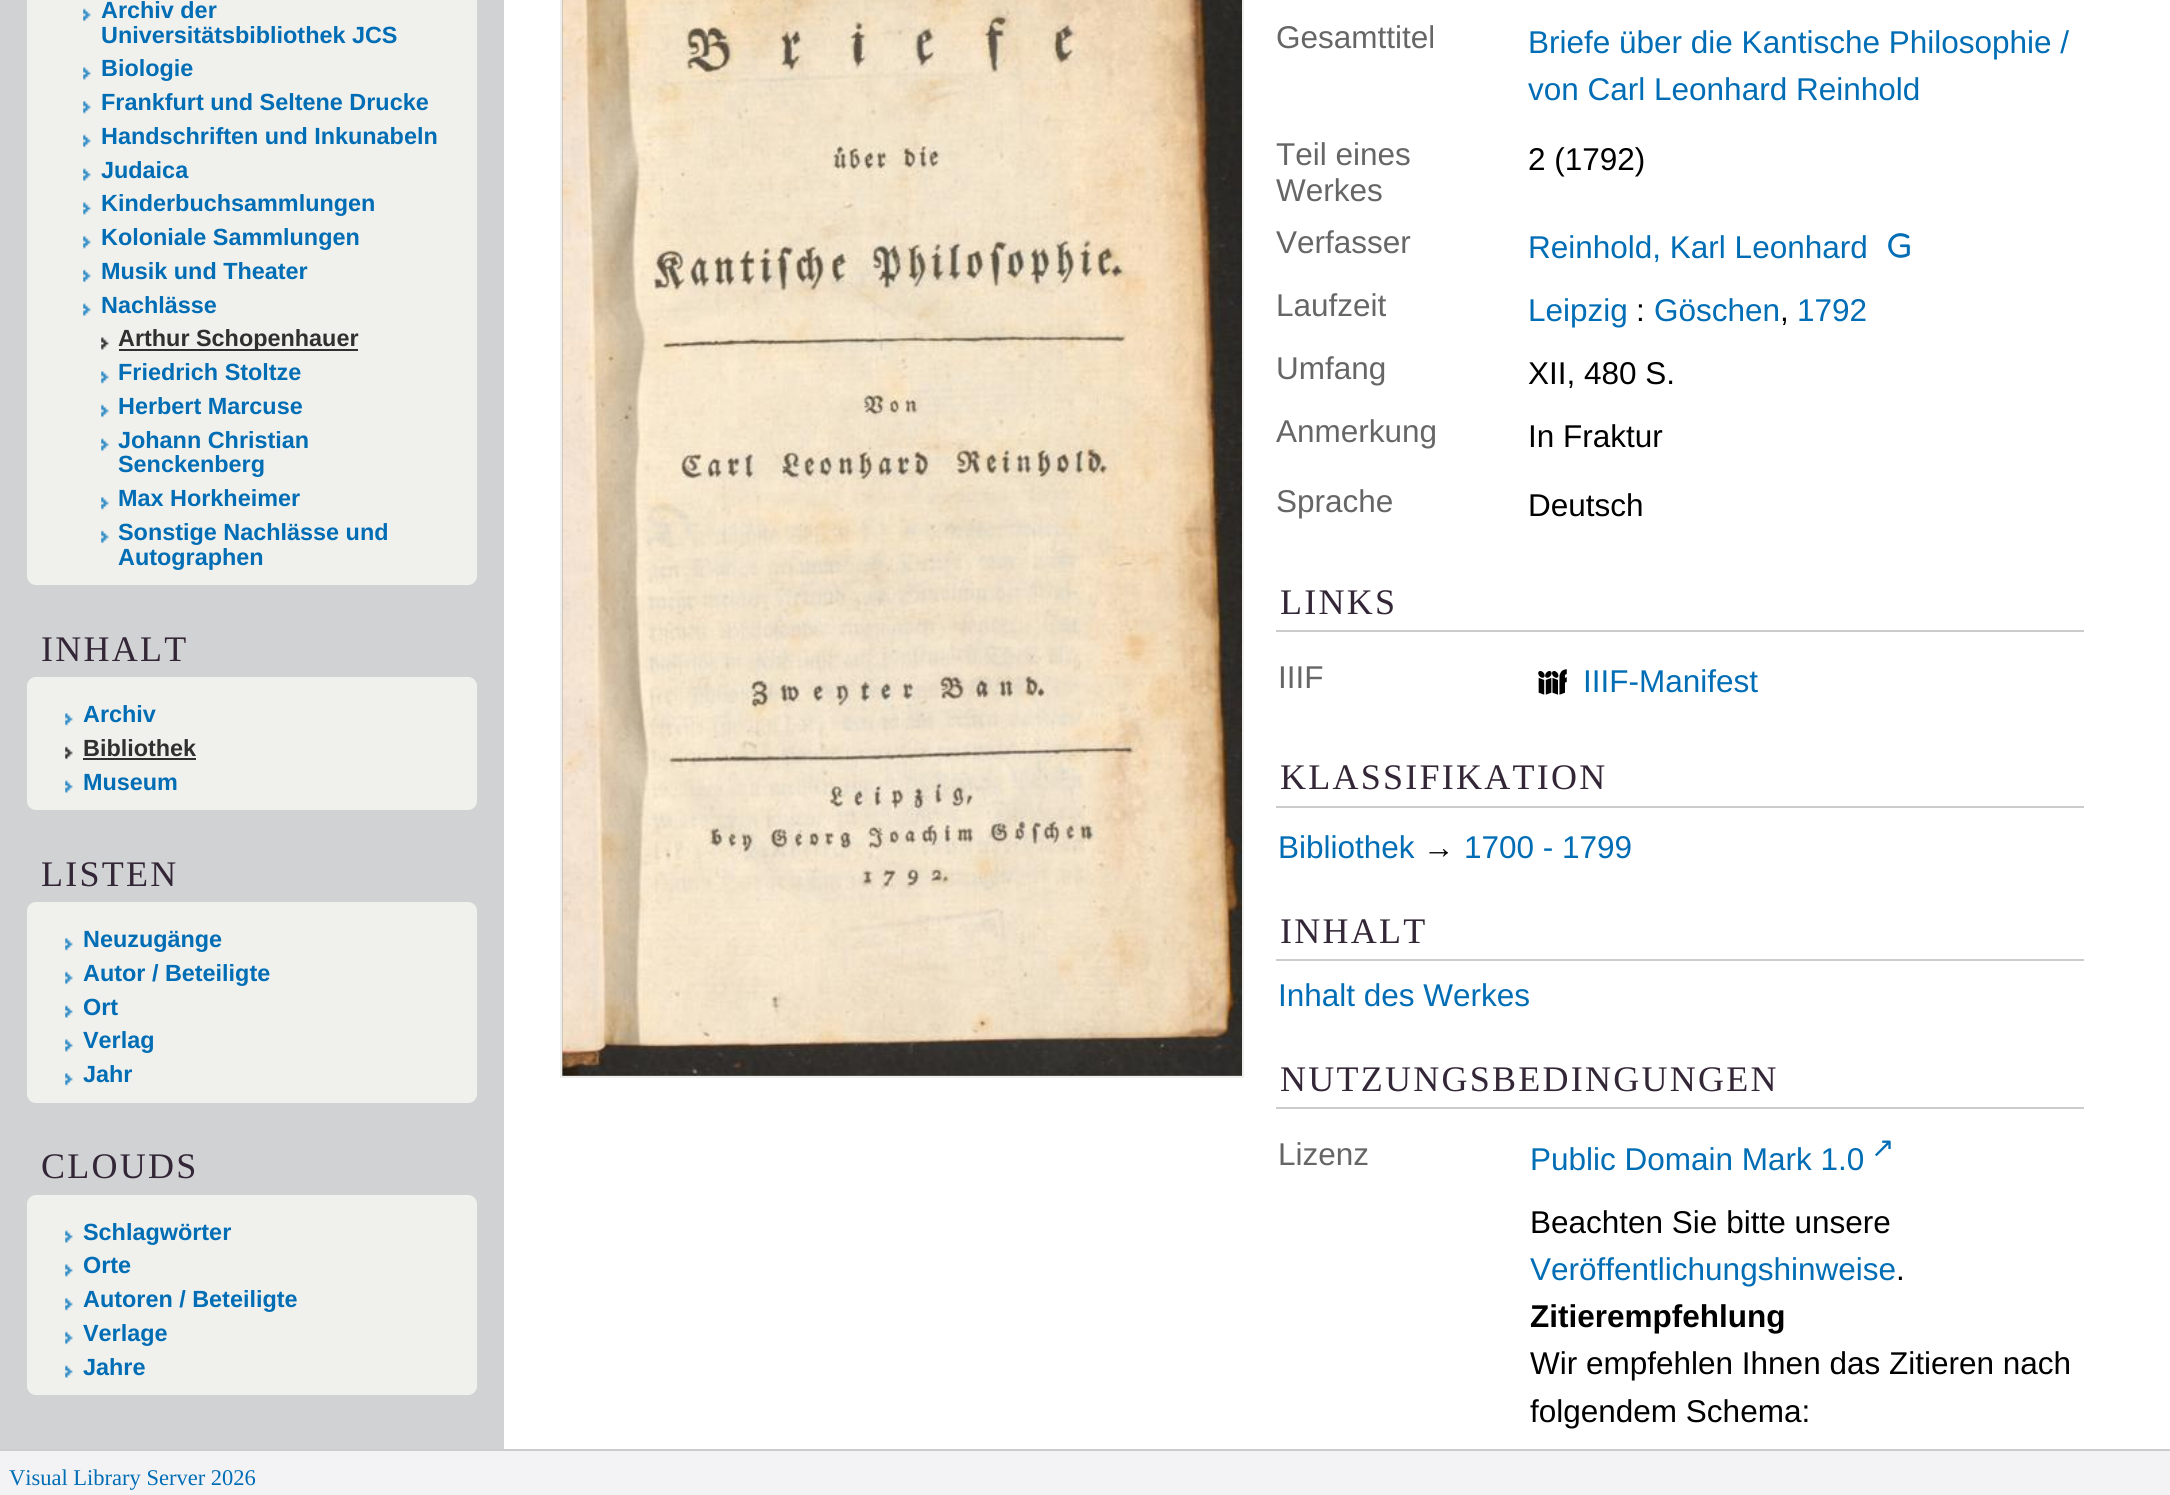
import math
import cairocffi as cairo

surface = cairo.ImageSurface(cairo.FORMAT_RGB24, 2170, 1495)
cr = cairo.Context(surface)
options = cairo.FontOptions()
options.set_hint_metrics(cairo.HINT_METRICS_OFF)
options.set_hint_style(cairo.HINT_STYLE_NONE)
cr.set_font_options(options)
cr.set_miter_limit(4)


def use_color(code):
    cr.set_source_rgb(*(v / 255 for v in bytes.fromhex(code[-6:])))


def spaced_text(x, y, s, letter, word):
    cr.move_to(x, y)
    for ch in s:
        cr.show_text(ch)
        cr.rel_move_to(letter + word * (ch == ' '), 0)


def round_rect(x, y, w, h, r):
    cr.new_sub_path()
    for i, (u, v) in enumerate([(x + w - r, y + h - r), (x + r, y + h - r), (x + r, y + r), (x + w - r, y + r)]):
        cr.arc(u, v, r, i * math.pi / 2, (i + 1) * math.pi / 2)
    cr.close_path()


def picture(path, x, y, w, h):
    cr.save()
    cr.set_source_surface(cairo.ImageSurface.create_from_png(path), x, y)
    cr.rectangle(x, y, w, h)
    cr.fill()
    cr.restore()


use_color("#d1d2d4")
cr.paint()
use_color("#f0f0ec")
round_rect(28, -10, 448, 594, 8)
cr.fill_preserve()
cr.stroke()
picture("img1.png", 83, 8, 8, 14)
cr.select_font_face("Liberation Sans", cairo.FONT_SLANT_NORMAL, cairo.FONT_WEIGHT_BOLD)
cr.set_font_size(23.4)
use_color("#006db5")
cr.move_to(101, 18)
cr.show_text("Archiv der")
cr.move_to(101, 43)
cr.show_text("Universitätsbibliothek JCS")
picture("img2.png", 83, 67, 8, 13)
cr.move_to(101, 76)
cr.show_text("Biologie")
picture("img3.png", 83, 101, 8, 13)
cr.move_to(101, 110)
cr.show_text("Frankfurt und Seltene Drucke")
picture("img1.png", 83, 134, 8, 14)
cr.move_to(101, 144)
cr.show_text("Handschriften und Inkunabeln")
picture("img4.png", 83, 168, 8, 13)
cr.move_to(101, 178)
cr.show_text("Judaica")
picture("img2.png", 83, 202, 8, 13)
cr.move_to(101, 211)
cr.show_text("Kinderbuchsammlungen")
picture("img3.png", 83, 236, 8, 13)
cr.move_to(101, 245)
cr.show_text("Koloniale Sammlungen")
picture("img1.png", 83, 269, 8, 14)
cr.move_to(101, 279)
cr.show_text("Musik und Theater")
picture("img5.png", 83, 303, 8, 13)
cr.move_to(101, 313)
cr.show_text("Nachlässe")
picture("img6.png", 101, 337, 8, 13)
use_color("#303030")
cr.rectangle(119, 349, 239, 2)
cr.fill()
cr.move_to(118, 346)
cr.show_text("Arthur Schopenhauer")
picture("img7.png", 101, 371, 8, 13)
use_color("#006db5")
cr.move_to(118, 380)
cr.show_text("Friedrich Stoltze")
picture("img1.png", 101, 404, 8, 14)
cr.move_to(118, 414)
cr.show_text("Herbert Marcuse")
picture("img5.png", 101, 438, 8, 13)
cr.move_to(118, 448)
cr.show_text("Johann Christian")
cr.move_to(118, 472)
cr.show_text("Senckenberg")
picture("img3.png", 101, 497, 8, 13)
cr.move_to(118, 506)
cr.show_text("Max Horkheimer")
picture("img1.png", 101, 530, 8, 14)
cr.move_to(118, 540)
cr.show_text("Sonstige Nachlässe und")
cr.move_to(118, 565)
cr.show_text("Autographen")
cr.select_font_face("Liberation Serif")
cr.set_font_size(36)
use_color("#332636")
spaced_text(41, 661, "INHALT", 2.25, 0)
use_color("#f0f0ec")
round_rect(28, 678, 448, 131, 8)
cr.fill_preserve()
cr.stroke()
picture("img8.png", 65, 713, 8, 13)
cr.select_font_face("Liberation Sans", cairo.FONT_SLANT_NORMAL, cairo.FONT_WEIGHT_BOLD)
cr.set_font_size(23.4)
use_color("#006db5")
cr.move_to(83, 722)
cr.show_text("Archiv")
picture("img9.png", 65, 746, 8, 14)
use_color("#303030")
cr.move_to(83, 756)
cr.show_text("Bibliothek")
cr.rectangle(83, 758, 113, 2)
cr.fill()
picture("img10.png", 65, 780, 8, 13)
use_color("#006db5")
cr.move_to(83, 790)
cr.show_text("Museum")
cr.select_font_face("Liberation Serif")
cr.set_font_size(36)
use_color("#332636")
spaced_text(41, 886, "LISTEN", 2.25, 0)
use_color("#f0f0ec")
round_rect(28, 903, 448, 199, 8)
cr.fill_preserve()
cr.stroke()
picture("img8.png", 65, 938, 8, 13)
cr.select_font_face("Liberation Sans", cairo.FONT_SLANT_NORMAL, cairo.FONT_WEIGHT_BOLD)
cr.set_font_size(23.4)
use_color("#006db5")
cr.move_to(83, 947)
cr.show_text("Neuzugänge")
picture("img11.png", 65, 971, 8, 14)
cr.move_to(83, 981)
cr.show_text("Autor / Beteiligte")
picture("img10.png", 65, 1005, 8, 13)
cr.move_to(83, 1015)
cr.show_text("Ort")
picture("img12.png", 65, 1039, 8, 13)
cr.move_to(83, 1048)
cr.show_text("Verlag")
picture("img8.png", 65, 1073, 8, 13)
cr.move_to(83, 1082)
cr.show_text("Jahr")
cr.select_font_face("Liberation Serif")
cr.set_font_size(36)
use_color("#332636")
spaced_text(41, 1178, "CLOUDS", 2.25, 0)
use_color("#f0f0ec")
round_rect(28, 1196, 448, 198, 8)
cr.fill_preserve()
cr.stroke()
picture("img10.png", 65, 1230, 8, 13)
cr.select_font_face("Liberation Sans", cairo.FONT_SLANT_NORMAL, cairo.FONT_WEIGHT_BOLD)
cr.set_font_size(23.4)
use_color("#006db5")
cr.move_to(83, 1240)
cr.show_text("Schlagwörter")
picture("img12.png", 65, 1264, 8, 13)
cr.move_to(83, 1273)
cr.show_text("Orte")
picture("img8.png", 65, 1298, 8, 13)
cr.move_to(83, 1307)
cr.show_text("Autoren / Beteiligte")
picture("img11.png", 65, 1331, 8, 14)
cr.move_to(83, 1341)
cr.show_text("Verlage")
picture("img10.png", 65, 1365, 8, 13)
cr.move_to(83, 1375)
cr.show_text("Jahre")
use_color("#ffffff")
cr.rectangle(504, 0, 1666, 1449)
cr.fill()
use_color("#aaaaaa")
cr.rectangle(561, -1, 682, 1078)
cr.fill_preserve()
use_color("#eeeeec")
cr.stroke()
picture("img13.png", 562, 0, 680, 1076)
cr.select_font_face("Liberation Sans")
cr.set_font_size(31.5)
use_color("#666666")
cr.move_to(1276, 48)
cr.show_text("Gesamttitel")
use_color("#006db5")
cr.move_to(1528, 53)
cr.show_text("Briefe über die Kantische Philosophie /")
cr.move_to(1528, 100)
cr.show_text("von Carl Leonhard Reinhold")
use_color("#666666")
cr.move_to(1276, 165)
cr.show_text("Teil eines")
cr.move_to(1276, 201)
cr.show_text("Werkes")
use_color("#000000")
cr.move_to(1528, 170)
cr.show_text("2 (1792)")
use_color("#666666")
cr.move_to(1276, 253)
cr.show_text("Verfasser")
use_color("#006db5")
cr.move_to(1528, 258)
cr.show_text("Reinhold, Karl Leonhard")
picture("img14.png", 1888, 233, 22, 25)
use_color("#666666")
cr.move_to(1276, 316)
cr.show_text("Laufzeit")
use_color("#006db5")
cr.move_to(1528, 321)
cr.show_text("Leipzig")
use_color("#000000")
cr.move_to(1636, 321)
cr.show_text(":")
use_color("#006db5")
cr.move_to(1654, 321)
cr.show_text("Göschen")
use_color("#000000")
cr.move_to(1780, 321)
cr.show_text(",")
use_color("#006db5")
cr.move_to(1797, 321)
cr.show_text("1792")
use_color("#666666")
cr.move_to(1276, 379)
cr.show_text("Umfang")
use_color("#000000")
cr.move_to(1528, 384)
cr.show_text("XII, 480 S.")
use_color("#666666")
cr.move_to(1276, 442)
cr.show_text("Anmerkung")
use_color("#000000")
cr.move_to(1528, 447)
cr.show_text("In Fraktur")
use_color("#666666")
cr.move_to(1276, 512)
cr.show_text("Sprache")
use_color("#000000")
cr.move_to(1528, 516)
cr.show_text("Deutsch")
use_color("#cccccc")
cr.rectangle(1276, 630, 808, 2)
cr.fill()
cr.select_font_face("Liberation Serif")
cr.set_font_size(36)
use_color("#332636")
spaced_text(1280, 614, "LINKS", 2.25, 0)
cr.select_font_face("Liberation Sans")
cr.set_font_size(31.5)
use_color("#666666")
cr.move_to(1278, 688)
cr.show_text("IIIF")
picture("img15.png", 1538, 669, 29, 26)
use_color("#006db5")
cr.move_to(1583, 692)
cr.show_text("IIIF-Manifest")
use_color("#cccccc")
cr.rectangle(1276, 806, 808, 2)
cr.fill()
cr.select_font_face("Liberation Serif")
cr.set_font_size(36)
use_color("#332636")
spaced_text(1280, 789, "KLASSIFIKATION", 2.25, 0)
cr.select_font_face("Liberation Sans")
cr.set_font_size(31.5)
use_color("#006db5")
cr.move_to(1278, 858)
cr.show_text("Bibliothek")
use_color("#000000")
cr.move_to(1423, 858)
cr.show_text("→")
use_color("#006db5")
cr.move_to(1464, 858)
cr.show_text("1700 - 1799")
use_color("#cccccc")
cr.rectangle(1276, 959, 808, 2)
cr.fill()
cr.select_font_face("Liberation Serif")
cr.set_font_size(36)
use_color("#332636")
spaced_text(1280, 943, "INHALT", 2.25, 0)
cr.select_font_face("Liberation Sans")
cr.set_font_size(31.5)
use_color("#006db5")
cr.move_to(1278, 1006)
cr.show_text("Inhalt des Werkes")
use_color("#cccccc")
cr.rectangle(1276, 1107, 808, 2)
cr.fill()
cr.select_font_face("Liberation Serif")
cr.set_font_size(36)
use_color("#332636")
spaced_text(1280, 1091, "NUTZUNGSBEDINGUNGEN", 2.25, 0)
cr.select_font_face("Liberation Sans")
cr.set_font_size(31.5)
use_color("#666666")
cr.move_to(1278, 1165)
cr.show_text("Lizenz")
use_color("#006db5")
cr.move_to(1530, 1170)
cr.show_text("Public Domain Mark 1.0")
cr.select_font_face("DejaVu Sans")
cr.set_font_size(28)
cr.move_to(1871, 1157)
cr.show_text("↗")
cr.select_font_face("Liberation Sans")
cr.set_font_size(31.5)
use_color("#000000")
cr.move_to(1530, 1233)
cr.show_text("Beachten Sie bitte unsere")
use_color("#006db5")
cr.move_to(1530, 1280)
cr.show_text("Veröffentlichungshinweise")
use_color("#000000")
cr.move_to(1896, 1280)
cr.show_text(".")
cr.select_font_face("Liberation Sans", cairo.FONT_SLANT_NORMAL, cairo.FONT_WEIGHT_BOLD)
cr.move_to(1530, 1327)
cr.show_text("Zitierempfehlung")
cr.select_font_face("Liberation Sans")
cr.move_to(1530, 1374)
cr.show_text("Wir empfehlen Ihnen das Zitieren nach")
cr.move_to(1530, 1422)
cr.show_text("folgendem Schema:")
use_color("#f3f3f6")
cr.rectangle(0, 1451, 2170, 44)
cr.fill()
use_color("#cccccc")
cr.rectangle(0, 1449, 2170, 2)
cr.fill()
cr.select_font_face("Liberation Serif")
cr.set_font_size(22.5)
use_color("#006db5")
cr.move_to(9, 1485)
cr.show_text("Visual Library Server 2026")
surface.write_to_png("result.png")
